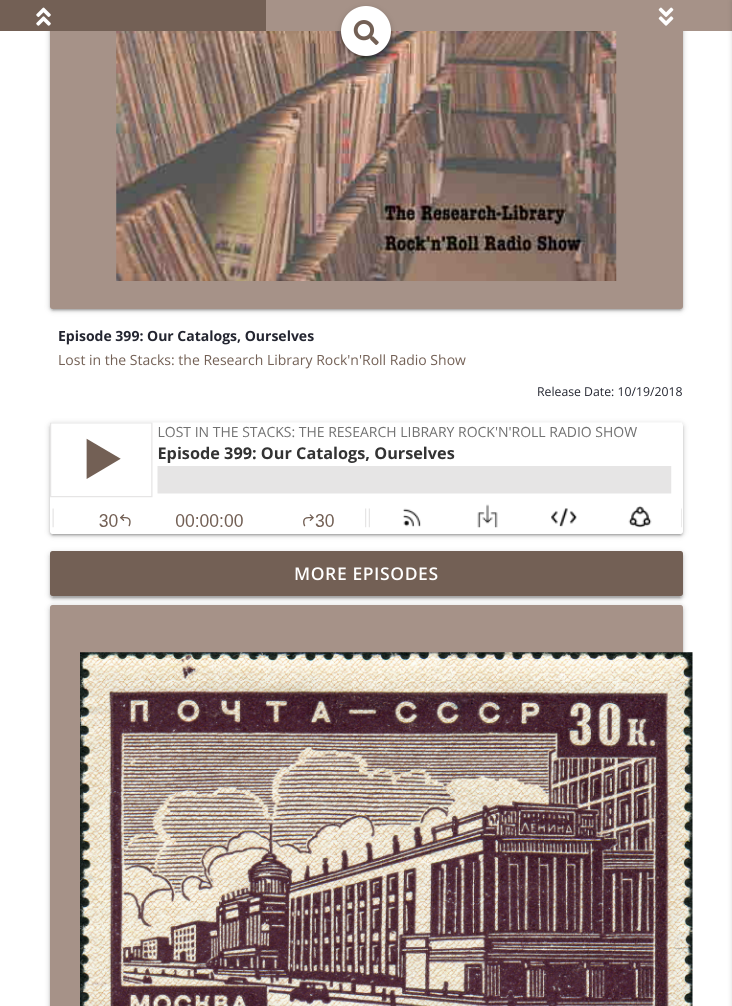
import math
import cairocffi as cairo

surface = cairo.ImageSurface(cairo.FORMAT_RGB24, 732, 1006)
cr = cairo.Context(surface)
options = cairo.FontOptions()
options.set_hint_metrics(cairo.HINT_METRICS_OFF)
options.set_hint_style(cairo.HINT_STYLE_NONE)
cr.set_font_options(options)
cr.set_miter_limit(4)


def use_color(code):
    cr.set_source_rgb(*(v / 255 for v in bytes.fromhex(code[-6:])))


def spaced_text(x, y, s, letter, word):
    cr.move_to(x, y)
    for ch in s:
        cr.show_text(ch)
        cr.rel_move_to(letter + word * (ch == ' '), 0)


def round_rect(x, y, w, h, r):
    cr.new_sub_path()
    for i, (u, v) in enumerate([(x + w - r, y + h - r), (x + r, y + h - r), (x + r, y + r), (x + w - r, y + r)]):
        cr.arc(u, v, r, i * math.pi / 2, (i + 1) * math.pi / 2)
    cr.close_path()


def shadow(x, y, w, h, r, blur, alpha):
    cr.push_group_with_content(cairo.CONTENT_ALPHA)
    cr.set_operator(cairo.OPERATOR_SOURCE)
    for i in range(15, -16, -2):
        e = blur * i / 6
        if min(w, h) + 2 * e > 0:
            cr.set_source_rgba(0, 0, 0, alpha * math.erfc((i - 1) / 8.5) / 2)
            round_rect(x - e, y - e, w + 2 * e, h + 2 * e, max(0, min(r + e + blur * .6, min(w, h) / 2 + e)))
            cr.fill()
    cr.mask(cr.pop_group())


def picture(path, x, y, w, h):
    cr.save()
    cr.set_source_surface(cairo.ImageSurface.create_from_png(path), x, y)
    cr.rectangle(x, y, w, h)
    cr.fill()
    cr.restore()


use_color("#ffffff")
cr.paint()
use_color("#000000")
shadow(50, -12, 633, 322, 2.5, 3, 0.2)
shadow(50, -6, 633, 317, 2.5, 1, 0.14)
use_color("#a69288")
cr.rectangle(683, 0, 49, 31)
cr.fill()
use_color("#000000")
shadow(53, -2, 627, 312, 0, 0.5, 0.12)
use_color("#a69288")
round_rect(50, -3, 633, 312, 2.5)
cr.fill()
use_color("#736055")
cr.rectangle(0, 0, 266, 31)
cr.fill()
picture("img4.png", 116, 31, 501, 250)
use_color("#000000")
shadow(341, 8, 50, 50, 25, 3, 0.2)
shadow(344, 13, 45, 45, 22.5, 0.5, 0.12)
shadow(341, 9, 50, 50, 25, 1, 0.14)
use_color("#ffffff")
cr.arc(366, 31, 25, 0, 2 * math.pi)
cr.fill()
picture("img1.png", 353, 20, 26, 25)
picture("img2.png", 36, 7, 15, 19)
picture("img3.png", 658, 7, 16, 19)
cr.select_font_face("Open Sans", cairo.FONT_SLANT_NORMAL, cairo.FONT_WEIGHT_BOLD)
cr.set_font_size(14)
use_color("#232530")
cr.move_to(58, 341)
cr.show_text("Episode 399: Our Catalogs, Ourselves")
cr.select_font_face("Open Sans")
use_color("#736055")
cr.move_to(58, 365)
cr.show_text("Lost in the Stacks: the Research Library Rock'n'Roll Radio Show")
cr.set_font_size(12.25)
use_color("#232530")
cr.move_to(537, 396)
cr.show_text("Release Date: 10/19/2018")
use_color("#000000")
shadow(50, 424, 633, 111, 2.5, 3, 0.2)
shadow(53, 429, 627, 106, 0, 0.5, 0.12)
shadow(50, 425, 633, 111, 2.5, 1, 0.14)
use_color("#ffffff")
round_rect(50, 423, 633, 111, 2.5)
cr.fill()
picture("img5.png", 50, 422, 632, 106)
use_color("#000000")
shadow(50, 553, 633, 45, 2.5, 3, 0.2)
shadow(53, 558, 627, 40, 0, 0.5, 0.12)
shadow(50, 554, 633, 45, 2.5, 1, 0.14)
use_color("#736055")
round_rect(50, 551, 633, 45, 2.5)
cr.fill()
cr.select_font_face("Open Sans SemiBold")
cr.set_font_size(17.5)
use_color("#ffffff")
spaced_text(294, 580, "MORE EPISODES", 0.6, 0)
use_color("#000000")
shadow(50, 606, 633, 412, 2.5, 3, 0.2)
shadow(50, 608, 633, 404, 2.5, 1, 0.14)
use_color("#a69288")
round_rect(50, 605, 633, 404, 2.5)
cr.fill()
picture("img6.png", 80, 652, 613, 354)
use_color("#000000")
shadow(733, 1, 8, 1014, 0, 3, 0.2)
surface.write_to_png("result.png")
